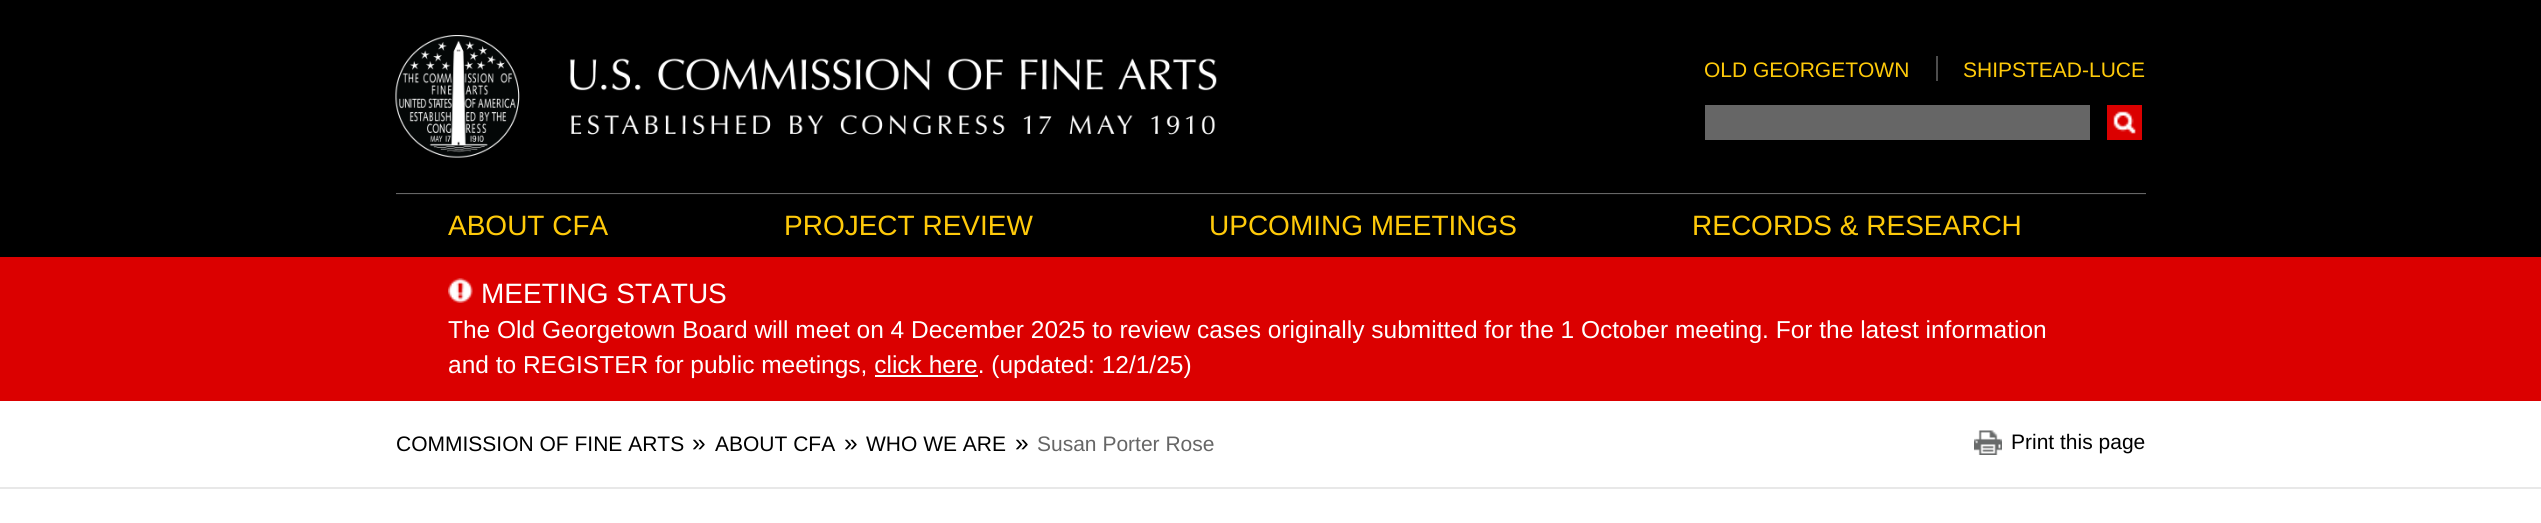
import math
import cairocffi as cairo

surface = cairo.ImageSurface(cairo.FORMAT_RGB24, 2541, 523)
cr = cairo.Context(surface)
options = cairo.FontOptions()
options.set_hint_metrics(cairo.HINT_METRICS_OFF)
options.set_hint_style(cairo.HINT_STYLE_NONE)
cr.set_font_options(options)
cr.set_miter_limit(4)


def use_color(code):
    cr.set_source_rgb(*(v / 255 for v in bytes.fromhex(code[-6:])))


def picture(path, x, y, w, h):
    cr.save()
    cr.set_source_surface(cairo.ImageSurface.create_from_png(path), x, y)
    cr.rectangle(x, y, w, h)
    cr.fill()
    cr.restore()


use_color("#ffffff")
cr.paint()
use_color("#000000")
cr.rectangle(0, 0, 2541, 257)
cr.fill()
picture("img1.png", 395, 35, 822, 123)
use_color("#4d4d4d")
cr.rectangle(1936, 56, 2, 25)
cr.fill()
cr.select_font_face("Liberation Sans")
cr.set_font_size(21)
use_color("#ffca0a")
cr.move_to(1704, 77)
cr.show_text("OLD GEORGETOWN")
cr.move_to(1963, 77)
cr.show_text("SHIPSTEAD-LUCE")
use_color("#666666")
cr.rectangle(1705, 105, 385, 35)
cr.fill()
use_color("#db0000")
cr.rectangle(2107, 105, 35, 35)
cr.fill()
picture("img2.png", 2113, 111, 23, 23)
use_color("#666666")
cr.rectangle(396, 193, 1750, 1)
cr.fill()
use_color("#0a0a0a")
cr.rectangle(396, 194, 1750, 1)
cr.fill()
cr.set_font_size(28)
use_color("#ffca0a")
cr.move_to(448, 235)
cr.show_text("ABOUT CFA")
cr.move_to(784, 235)
cr.show_text("PROJECT REVIEW")
cr.move_to(1209, 235)
cr.show_text("UPCOMING MEETINGS")
cr.move_to(1692, 235)
cr.show_text("RECORDS & RESEARCH")
use_color("#db0000")
cr.rectangle(0, 257, 2541, 144)
cr.fill()
picture("img3.png", 448, 278, 25, 25)
use_color("#ffffff")
cr.move_to(481, 303)
cr.show_text("MEETING STATUS")
cr.set_font_size(24.5)
cr.move_to(448, 338)
cr.show_text("The Old Georgetown Board will meet on 4 December 2025 to review cases originally submitted for the 1 October meeting. For the latest information")
cr.move_to(448, 373)
cr.show_text("and to REGISTER for public meetings, click here. (updated: 12/1/25)")
cr.rectangle(875, 375, 103, 2)
cr.fill()
use_color("#e8e8e8")
cr.rectangle(0, 487, 2541, 2)
cr.fill()
cr.set_font_size(21)
use_color("#000000")
cr.move_to(396, 451)
cr.show_text("COMMISSION OF FINE ARTS")
cr.set_font_size(24.5)
cr.move_to(692, 451)
cr.show_text("»")
cr.set_font_size(21)
cr.move_to(715, 451)
cr.show_text("ABOUT CFA")
cr.set_font_size(24.5)
cr.move_to(844, 451)
cr.show_text("»")
cr.set_font_size(21)
cr.move_to(866, 451)
cr.show_text("WHO WE ARE")
cr.set_font_size(24.5)
cr.move_to(1015, 451)
cr.show_text("»")
cr.set_font_size(21)
use_color("#666666")
cr.move_to(1037, 451)
cr.show_text("Susan Porter Rose")
picture("img4.png", 1974, 430, 28, 25)
use_color("#000000")
cr.move_to(2011, 449)
cr.show_text("Print this page")
surface.write_to_png("result.png")
